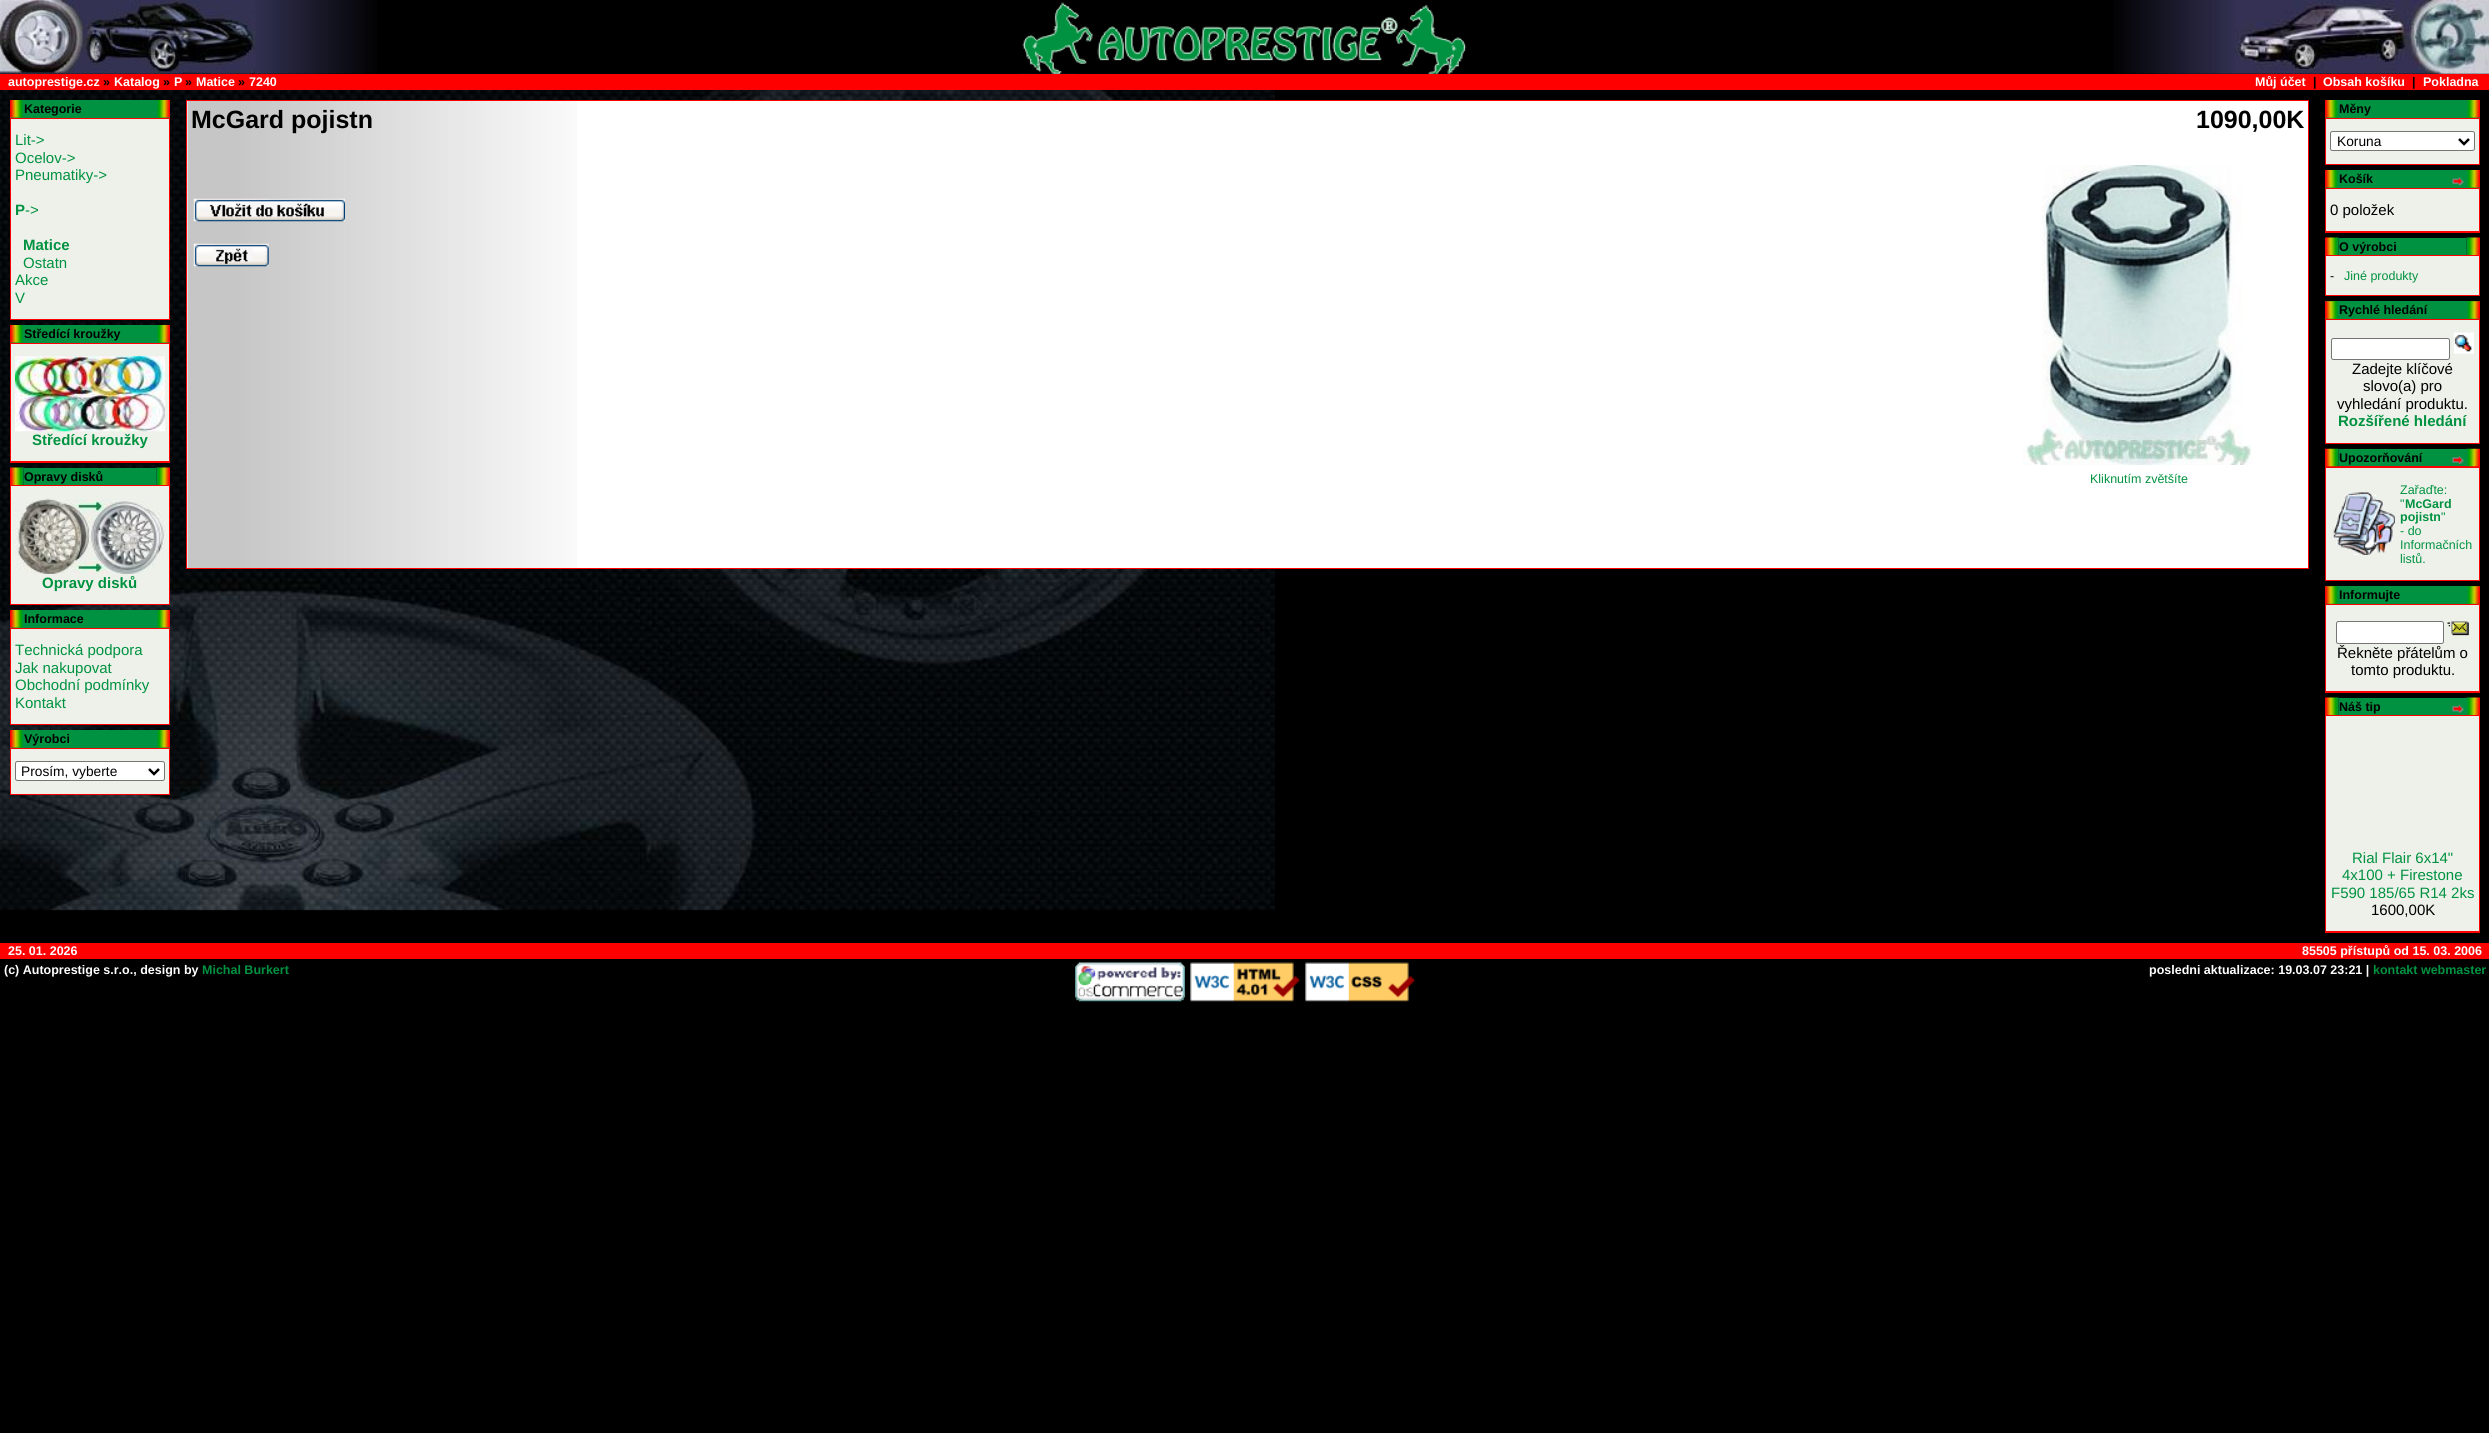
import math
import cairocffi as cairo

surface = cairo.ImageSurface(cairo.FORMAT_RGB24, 2489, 1433)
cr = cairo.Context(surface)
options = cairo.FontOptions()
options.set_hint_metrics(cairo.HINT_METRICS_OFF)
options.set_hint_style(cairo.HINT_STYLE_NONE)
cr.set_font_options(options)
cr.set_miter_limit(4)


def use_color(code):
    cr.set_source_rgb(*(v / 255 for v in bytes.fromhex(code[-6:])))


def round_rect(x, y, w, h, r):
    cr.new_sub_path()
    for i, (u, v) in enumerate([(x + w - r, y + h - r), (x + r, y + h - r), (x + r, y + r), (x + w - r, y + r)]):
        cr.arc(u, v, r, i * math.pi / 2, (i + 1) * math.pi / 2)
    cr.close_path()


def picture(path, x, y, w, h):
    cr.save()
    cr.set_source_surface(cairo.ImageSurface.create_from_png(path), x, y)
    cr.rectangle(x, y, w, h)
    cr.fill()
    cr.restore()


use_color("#000000")
cr.paint()
picture("img1.png", 0, 73, 1275, 838)
picture("img2.png", 0, 0, 255, 74)
use_color("#000000")
cr.rectangle(255, 73, 764, 1)
cr.fill()
picture("img3.png", 255, 0, 122, 74)
picture("img4.png", 1019, 0, 452, 74)
picture("img5.png", 2114, 0, 121, 74)
picture("img6.png", 2235, 0, 254, 74)
use_color("#ff0000")
cr.rectangle(0, 74, 2489, 16)
cr.fill()
cr.select_font_face("Liberation Sans", cairo.FONT_SLANT_NORMAL, cairo.FONT_WEIGHT_BOLD)
cr.set_font_size(12.5)
use_color("#ffffff")
cr.move_to(8, 86)
cr.show_text("autoprestige.cz")
use_color("#000000")
cr.move_to(103, 86)
cr.show_text("»")
use_color("#ffffff")
cr.move_to(114, 86)
cr.show_text("Katalog")
use_color("#000000")
cr.move_to(163, 86)
cr.show_text("»")
use_color("#ffffff")
cr.move_to(174, 86)
cr.show_text("P")
use_color("#000000")
cr.move_to(185, 86)
cr.show_text("»")
use_color("#ffffff")
cr.move_to(196, 86)
cr.show_text("Matice")
use_color("#000000")
cr.move_to(238, 86)
cr.show_text("»")
use_color("#ffffff")
cr.move_to(249, 86)
cr.show_text("7240")
cr.move_to(2255, 86)
cr.show_text("Můj účet")
use_color("#000000")
cr.move_to(2313, 86)
cr.show_text("|")
use_color("#ffffff")
cr.move_to(2323, 86)
cr.show_text("Obsah košíku")
use_color("#000000")
cr.move_to(2412, 86)
cr.show_text("|")
use_color("#ffffff")
cr.move_to(2423, 86)
cr.show_text("Pokladna")
use_color("#009240")
cr.rectangle(10, 100, 160, 18)
cr.fill()
picture("img7.png", 10, 100, 13, 18)
use_color("#000000")
cr.move_to(24, 113)
cr.show_text("Kategorie")
picture("img8.png", 157, 100, 13, 18)
use_color("#ff0000")
cr.rectangle(10, 118, 160, 202)
cr.fill()
use_color("#eef1ea")
cr.rectangle(11, 119, 158, 200)
cr.fill()
cr.select_font_face("Liberation Sans")
cr.set_font_size(15)
use_color("#009240")
cr.move_to(15, 145)
cr.show_text("Lit->")
cr.move_to(15, 163)
cr.show_text("Ocelov->")
cr.move_to(15, 180)
cr.show_text("Pneumatiky->")
cr.select_font_face("Liberation Sans", cairo.FONT_SLANT_NORMAL, cairo.FONT_WEIGHT_BOLD)
cr.move_to(15, 215)
cr.show_text("P")
cr.select_font_face("Liberation Sans")
cr.move_to(25, 215)
cr.show_text("->")
cr.select_font_face("Liberation Sans", cairo.FONT_SLANT_NORMAL, cairo.FONT_WEIGHT_BOLD)
cr.move_to(23, 250)
cr.show_text("Matice")
cr.select_font_face("Liberation Sans")
cr.move_to(23, 268)
cr.show_text("Ostatn")
cr.move_to(15, 285)
cr.show_text("Akce")
cr.move_to(15, 303)
cr.show_text("V")
cr.rectangle(10, 325, 160, 18)
cr.fill()
picture("img7.png", 10, 325, 13, 18)
cr.select_font_face("Liberation Sans", cairo.FONT_SLANT_NORMAL, cairo.FONT_WEIGHT_BOLD)
cr.set_font_size(12.5)
use_color("#000000")
cr.move_to(24, 338)
cr.show_text("Středící kroužky")
picture("img8.png", 157, 325, 13, 18)
use_color("#ff0000")
cr.rectangle(10, 343, 160, 120)
cr.fill()
use_color("#eef1ea")
cr.rectangle(11, 344, 158, 117)
cr.fill()
picture("img9.png", 15, 356, 150, 76)
cr.set_font_size(15)
use_color("#009240")
cr.move_to(32, 445)
cr.show_text("Středící kroužky")
picture("img10.png", 10, 467, 14, 18)
cr.rectangle(24, 468, 132, 17)
cr.fill()
cr.set_font_size(12.5)
use_color("#000000")
cr.move_to(24, 481)
cr.show_text("Opravy disků")
picture("img11.png", 156, 467, 14, 18)
use_color("#ff0000")
cr.rectangle(10, 485, 160, 120)
cr.fill()
use_color("#eef1ea")
cr.rectangle(11, 486, 158, 118)
cr.fill()
picture("img12.png", 15, 498, 150, 76)
cr.set_font_size(15)
use_color("#009240")
cr.move_to(42, 588)
cr.show_text("Opravy disků")
cr.rectangle(10, 610, 160, 18)
cr.fill()
picture("img7.png", 10, 610, 13, 18)
cr.set_font_size(12.5)
use_color("#000000")
cr.move_to(24, 623)
cr.show_text("Informace")
picture("img8.png", 157, 610, 13, 18)
use_color("#ff0000")
cr.rectangle(10, 628, 160, 97)
cr.fill()
use_color("#eef1ea")
cr.rectangle(11, 629, 158, 95)
cr.fill()
cr.select_font_face("Liberation Sans")
cr.set_font_size(15)
use_color("#009240")
cr.move_to(15, 655)
cr.show_text("Technická podpora")
cr.move_to(15, 673)
cr.show_text("Jak nakupovat")
cr.move_to(15, 690)
cr.show_text("Obchodní podmínky")
cr.move_to(15, 708)
cr.show_text("Kontakt")
cr.rectangle(10, 730, 160, 18)
cr.fill()
picture("img7.png", 10, 730, 13, 18)
cr.select_font_face("Liberation Sans", cairo.FONT_SLANT_NORMAL, cairo.FONT_WEIGHT_BOLD)
cr.set_font_size(12.5)
use_color("#000000")
cr.move_to(24, 743)
cr.show_text("Výrobci")
picture("img8.png", 157, 730, 13, 18)
use_color("#ff0000")
cr.rectangle(10, 748, 160, 47)
cr.fill()
use_color("#eef1ea")
cr.rectangle(11, 749, 158, 45)
cr.fill()
use_color("#ffffff")
round_rect(15.5, 761.5, 149, 19, 2)
cr.fill_preserve()
use_color("#767676")
cr.set_line_width(1)
cr.stroke()
cr.new_path()
cr.move_to(149, 769)
cr.line_to(154, 774)
cr.line_to(159, 769)
use_color("#000000")
cr.set_line_width(2.5)
cr.stroke()
cr.select_font_face("Liberation Sans")
cr.set_font_size(13.75)
cr.move_to(21, 776)
cr.show_text("Prosím, vyberte")
use_color("#ffffff")
cr.rectangle(187, 101, 2121, 467)
cr.fill()
picture("img13.png", 187, 101, 390, 467)
cr.rectangle(186.5, 100.5, 2122, 468)
use_color("#ff0000")
cr.set_line_width(1)
cr.stroke()
cr.select_font_face("Liberation Sans", cairo.FONT_SLANT_NORMAL, cairo.FONT_WEIGHT_BOLD)
cr.set_font_size(25)
use_color("#000000")
cr.move_to(191, 128)
cr.show_text("McGard pojistn")
cr.move_to(2196, 128)
cr.show_text("1090,00K")
picture("img14.png", 193, 198, 152, 24)
picture("img15.png", 193, 243, 76, 24)
picture("img16.png", 2022, 165, 230, 300)
cr.select_font_face("Liberation Sans")
cr.set_font_size(12.5)
use_color("#009240")
cr.move_to(2090, 483)
cr.show_text("Kliknutím zvětšíte")
cr.rectangle(2325, 100, 155, 18)
cr.fill()
picture("img17.png", 2325, 100, 13, 18)
cr.select_font_face("Liberation Sans", cairo.FONT_SLANT_NORMAL, cairo.FONT_WEIGHT_BOLD)
use_color("#000000")
cr.move_to(2339, 113)
cr.show_text("Měny")
picture("img8.png", 2467, 100, 13, 18)
use_color("#ff0000")
cr.rectangle(2325, 118, 155, 47)
cr.fill()
use_color("#eef1ea")
cr.rectangle(2326, 119, 153, 45)
cr.fill()
use_color("#ffffff")
round_rect(2330.5, 131.5, 144, 19, 2)
cr.fill_preserve()
use_color("#767676")
cr.stroke()
cr.new_path()
cr.move_to(2459, 139)
cr.line_to(2464, 144)
cr.line_to(2469, 139)
use_color("#000000")
cr.set_line_width(2.5)
cr.stroke()
cr.select_font_face("Liberation Sans")
cr.set_font_size(13.75)
cr.move_to(2337, 146)
cr.show_text("Koruna")
use_color("#009240")
cr.rectangle(2325, 170, 155, 18)
cr.fill()
picture("img17.png", 2325, 170, 13, 18)
cr.select_font_face("Liberation Sans", cairo.FONT_SLANT_NORMAL, cairo.FONT_WEIGHT_BOLD)
cr.set_font_size(12.5)
use_color("#000000")
cr.move_to(2339, 183)
cr.show_text("Košík")
picture("img18.png", 2452, 177, 12, 9)
picture("img8.png", 2467, 170, 13, 18)
use_color("#ff0000")
cr.rectangle(2325, 188, 155, 45)
cr.fill()
use_color("#eef1ea")
cr.rectangle(2326, 189, 153, 42)
cr.fill()
cr.select_font_face("Liberation Sans")
cr.set_font_size(15)
use_color("#000000")
cr.move_to(2330, 215)
cr.show_text("0 položek")
picture("img19.png", 2325, 237, 14, 18)
use_color("#009240")
cr.rectangle(2339, 238, 127, 17)
cr.fill()
cr.select_font_face("Liberation Sans", cairo.FONT_SLANT_NORMAL, cairo.FONT_WEIGHT_BOLD)
cr.set_font_size(12.5)
use_color("#000000")
cr.move_to(2339, 251)
cr.show_text("O výrobci")
picture("img20.png", 2466, 237, 14, 18)
use_color("#ff0000")
cr.rectangle(2325, 255, 155, 41)
cr.fill()
use_color("#eef1ea")
cr.rectangle(2326, 256, 153, 39)
cr.fill()
cr.select_font_face("Liberation Sans")
use_color("#000000")
cr.move_to(2330, 280)
cr.show_text("-")
use_color("#009240")
cr.move_to(2344, 280)
cr.show_text("Jiné produkty")
cr.rectangle(2325, 301, 155, 18)
cr.fill()
picture("img21.png", 2325, 301, 13, 18)
cr.select_font_face("Liberation Sans", cairo.FONT_SLANT_NORMAL, cairo.FONT_WEIGHT_BOLD)
use_color("#000000")
cr.move_to(2339, 314)
cr.show_text("Rychlé hledání")
picture("img22.png", 2467, 301, 13, 18)
use_color("#ff0000")
cr.rectangle(2325, 319, 155, 125)
cr.fill()
use_color("#eef1ea")
cr.rectangle(2326, 320, 153, 123)
cr.fill()
use_color("#ffffff")
round_rect(2331.5, 338.5, 118, 21, 2)
cr.fill_preserve()
use_color("#767676")
cr.set_line_width(1)
cr.stroke()
picture("img23.png", 2453, 332, 21, 22)
cr.select_font_face("Liberation Sans")
cr.set_font_size(15)
use_color("#000000")
cr.move_to(2352, 374)
cr.show_text("Zadejte klíčové")
cr.move_to(2363, 391)
cr.show_text("slovo(a) pro")
cr.move_to(2337, 409)
cr.show_text("vyhledání produktu.")
cr.select_font_face("Liberation Sans", cairo.FONT_SLANT_NORMAL, cairo.FONT_WEIGHT_BOLD)
use_color("#009240")
cr.move_to(2338, 426)
cr.show_text("Rozšířené hledání")
use_color("#ff0000")
cr.rectangle(2325, 466, 155, 115)
cr.fill()
picture("img24.png", 2325, 448, 14, 19)
use_color("#009240")
cr.rectangle(2339, 449, 128, 17)
cr.fill()
cr.set_font_size(12.5)
use_color("#000000")
cr.move_to(2339, 462)
cr.show_text("Upozorňování")
picture("img25.png", 2452, 456, 12, 8)
picture("img26.png", 2466, 448, 14, 19)
use_color("#eef1ea")
cr.rectangle(2326, 468, 153, 112)
cr.fill()
picture("img27.png", 2333, 492, 62, 63)
cr.select_font_face("Liberation Sans")
use_color("#009240")
cr.move_to(2400, 494)
cr.show_text("Zařaďte:")
cr.move_to(2400, 508)
cr.show_text("\"")
cr.select_font_face("Liberation Sans", cairo.FONT_SLANT_NORMAL, cairo.FONT_WEIGHT_BOLD)
cr.move_to(2405, 508)
cr.show_text("McGard")
cr.move_to(2400, 521)
cr.show_text("pojistn")
cr.select_font_face("Liberation Sans")
cr.move_to(2441, 521)
cr.show_text("\"")
cr.move_to(2400, 535)
cr.show_text("- do")
cr.move_to(2400, 549)
cr.show_text("Informačních")
cr.move_to(2400, 563)
cr.show_text("listů.")
cr.rectangle(2325, 586, 155, 18)
cr.fill()
picture("img21.png", 2325, 586, 13, 18)
cr.select_font_face("Liberation Sans", cairo.FONT_SLANT_NORMAL, cairo.FONT_WEIGHT_BOLD)
use_color("#000000")
cr.move_to(2339, 599)
cr.show_text("Informujte")
picture("img22.png", 2467, 586, 13, 18)
use_color("#ff0000")
cr.rectangle(2325, 604, 155, 89)
cr.fill()
use_color("#eef1ea")
cr.rectangle(2326, 605, 153, 86)
cr.fill()
use_color("#ffffff")
round_rect(2336.5, 621.5, 107, 22, 2)
cr.fill_preserve()
use_color("#767676")
cr.stroke()
picture("img28.png", 2447, 621, 22, 15)
cr.select_font_face("Liberation Sans")
cr.set_font_size(15)
use_color("#000000")
cr.move_to(2337, 658)
cr.show_text("Řekněte přátelům o")
cr.move_to(2351, 675)
cr.show_text("tomto produktu.")
picture("img19.png", 2325, 697, 14, 18)
use_color("#009240")
cr.rectangle(2339, 698, 128, 17)
cr.fill()
cr.select_font_face("Liberation Sans", cairo.FONT_SLANT_NORMAL, cairo.FONT_WEIGHT_BOLD)
cr.set_font_size(12.5)
use_color("#000000")
cr.move_to(2339, 711)
cr.show_text("Náš tip")
picture("img29.png", 2452, 704, 12, 9)
picture("img20.png", 2466, 697, 14, 18)
use_color("#ff0000")
cr.rectangle(2325, 715, 155, 218)
cr.fill()
use_color("#eef1ea")
cr.rectangle(2326, 716, 153, 215)
cr.fill()
cr.select_font_face("Liberation Sans")
cr.set_font_size(15)
use_color("#009240")
cr.move_to(2352, 863)
cr.show_text("Rial Flair 6x14\"")
cr.move_to(2342, 880)
cr.show_text("4x100 + Firestone")
cr.move_to(2331, 898)
cr.show_text("F590 185/65 R14 2ks")
use_color("#000000")
cr.move_to(2371, 915)
cr.show_text("1600,00K")
use_color("#ff0000")
cr.rectangle(0, 943, 2489, 16)
cr.fill()
cr.select_font_face("Liberation Sans", cairo.FONT_SLANT_NORMAL, cairo.FONT_WEIGHT_BOLD)
cr.set_font_size(12.5)
use_color("#ffffff")
cr.move_to(8, 955)
cr.show_text("25. 01. 2026")
cr.move_to(2302, 955)
cr.show_text("85505 přístupů od 15. 03. 2006")
cr.move_to(4, 974)
cr.show_text("(c) Autoprestige s.r.o., design by")
use_color("#009240")
cr.move_to(202, 974)
cr.show_text("Michal Burkert")
picture("img30.png", 1075, 962, 110, 40)
picture("img31.png", 1190, 962, 110, 40)
picture("img32.png", 1305, 962, 110, 40)
use_color("#ffffff")
cr.move_to(2149, 974)
cr.show_text("posledni aktualizace: 19.03.07 23:21 |")
use_color("#009240")
cr.move_to(2373, 974)
cr.show_text("kontakt webmaster")
surface.write_to_png("result.png")
